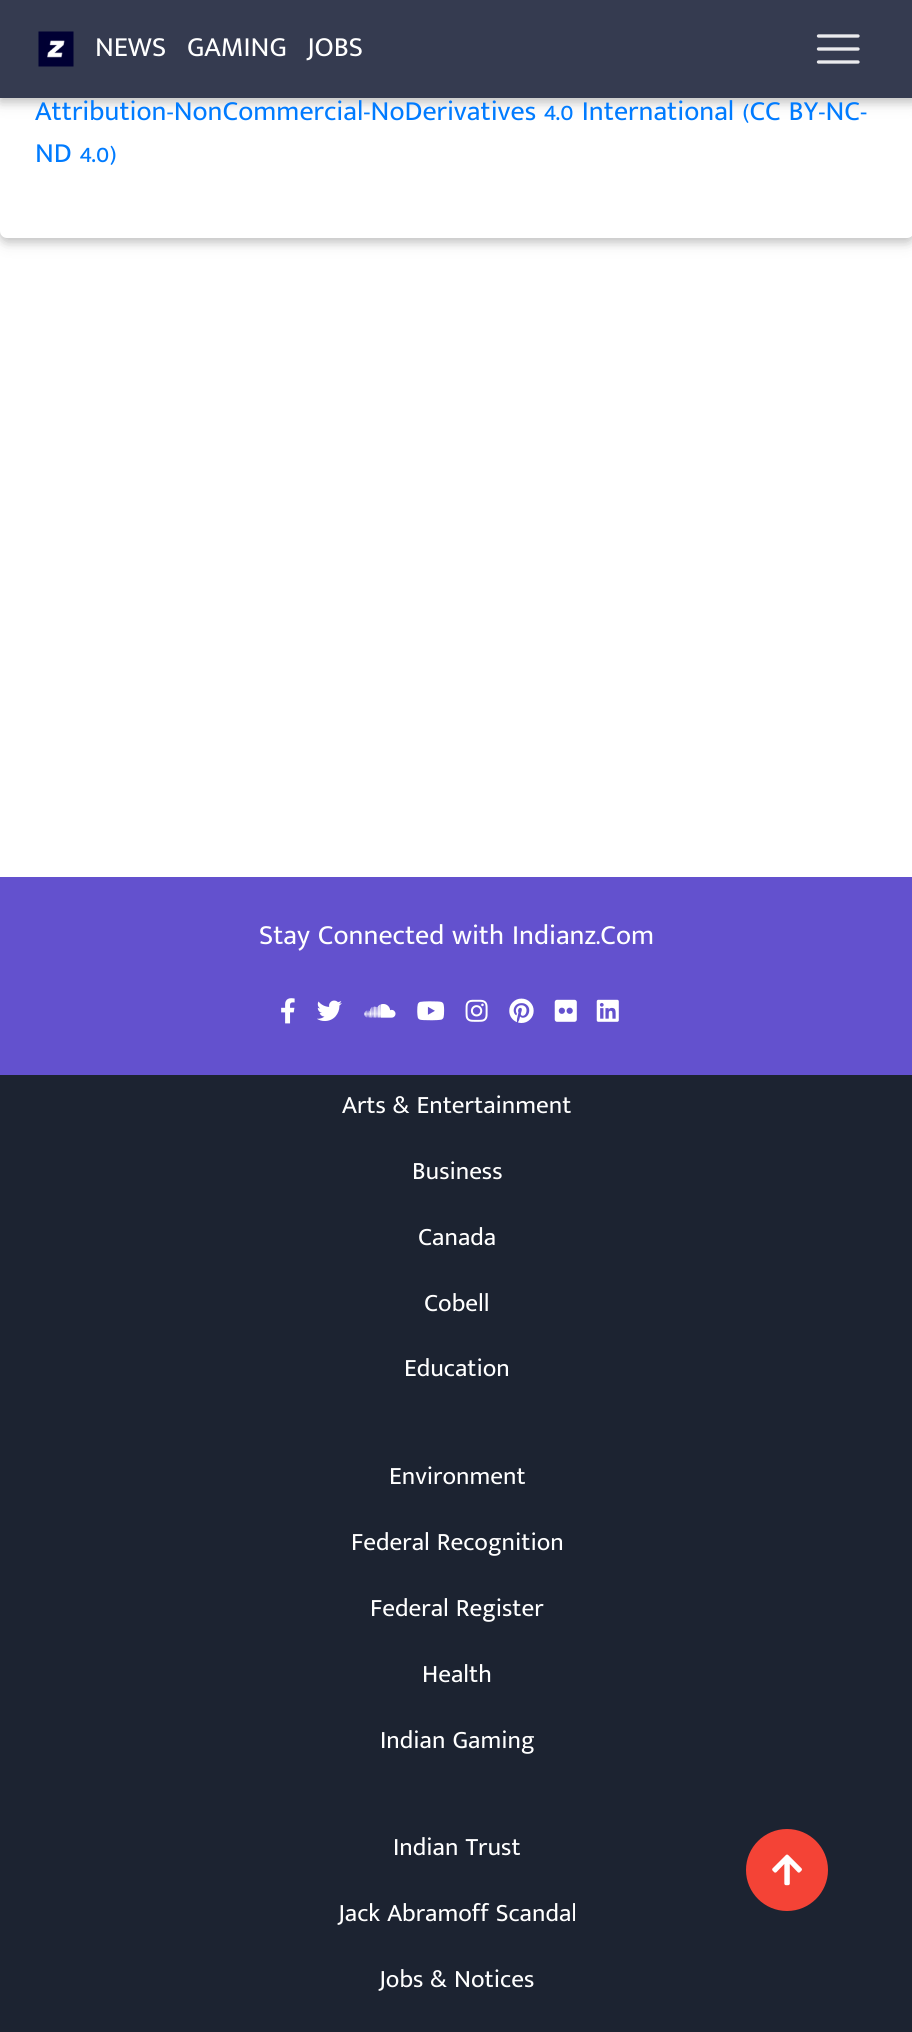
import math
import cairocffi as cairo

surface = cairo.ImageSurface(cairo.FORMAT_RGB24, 912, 2032)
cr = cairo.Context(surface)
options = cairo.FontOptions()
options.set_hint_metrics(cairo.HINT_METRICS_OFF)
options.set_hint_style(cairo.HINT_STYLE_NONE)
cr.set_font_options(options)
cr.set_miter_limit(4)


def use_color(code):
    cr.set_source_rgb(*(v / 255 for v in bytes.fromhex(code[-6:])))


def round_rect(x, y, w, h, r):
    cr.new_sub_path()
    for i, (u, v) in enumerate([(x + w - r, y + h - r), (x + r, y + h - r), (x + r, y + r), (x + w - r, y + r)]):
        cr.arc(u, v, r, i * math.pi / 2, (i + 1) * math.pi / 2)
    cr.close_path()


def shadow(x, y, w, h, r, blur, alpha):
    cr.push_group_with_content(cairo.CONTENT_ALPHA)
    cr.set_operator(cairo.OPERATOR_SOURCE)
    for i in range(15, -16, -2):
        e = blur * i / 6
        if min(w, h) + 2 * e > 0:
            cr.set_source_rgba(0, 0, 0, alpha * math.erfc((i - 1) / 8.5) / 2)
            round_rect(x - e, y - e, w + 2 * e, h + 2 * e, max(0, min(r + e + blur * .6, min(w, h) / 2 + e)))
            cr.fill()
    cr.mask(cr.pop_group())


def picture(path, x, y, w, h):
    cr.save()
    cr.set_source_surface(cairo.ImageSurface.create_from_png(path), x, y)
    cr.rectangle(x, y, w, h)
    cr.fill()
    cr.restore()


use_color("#ffffff")
cr.paint()
use_color("#000000")
shadow(0, -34, 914, 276, 7, 9, 0.12)
shadow(0, -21, 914, 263, 7, 4.5, 0.16)
use_color("#ffffff")
round_rect(0, -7, 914, 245, 7)
cr.fill()
use_color("#000000")
shadow(0, 4, 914, 98, 0, 9, 0.12)
shadow(0, 4, 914, 98, 0, 4.5, 0.16)
use_color("#353b50")
cr.rectangle(0, 0, 912, 98)
cr.fill()
picture("img1.png", 38, 31, 36, 36)
cr.select_font_face("Mukta Malar")
cr.set_font_size(28)
use_color("#ffffff")
cr.move_to(95, 56)
cr.show_text("NEWS")
cr.move_to(187, 56)
cr.show_text("GAMING")
cr.move_to(307, 56)
cr.show_text("JOBS")
cr.new_path()
cr.move_to(818.5, 36)
cr.line_to(858, 36)
cr.move_to(818.5, 49)
cr.line_to(858, 49)
cr.move_to(818.5, 62)
cr.line_to(858, 62)
use_color("#ebebee")
cr.set_line_width(3.3)
cr.set_line_cap(cairo.LINE_CAP_ROUND)
cr.stroke()
use_color("#007bff")
cr.move_to(35, 120)
cr.show_text("Attribution-NonCommercial-NoDerivatives 4.0 International (CC BY-NC-")
cr.move_to(35, 162)
cr.show_text("ND 4.0)")
use_color("#1c2331")
cr.rectangle(0, 1075, 912, 957)
cr.fill()
use_color("#6351ce")
cr.rectangle(0, 877, 912, 198)
cr.fill()
use_color("#ffffff")
cr.move_to(259, 944)
cr.show_text("Stay Connected with Indianz.Com")
picture("img2.png", 281, 998, 14, 26)
picture("img3.png", 317, 1000, 25, 21)
picture("img4.png", 364, 1004, 32, 14)
picture("img5.png", 417, 1001, 28, 20)
picture("img6.png", 465, 999, 23, 23)
picture("img7.png", 509, 998, 25, 25)
picture("img8.png", 554, 999, 23, 23)
picture("img9.png", 596, 999, 23, 23)
cr.set_font_size(25.25)
cr.move_to(342, 1113)
cr.show_text("Arts & Entertainment")
cr.move_to(412, 1179)
cr.show_text("Business")
cr.move_to(418, 1245)
cr.show_text("Canada")
cr.move_to(424, 1311)
cr.show_text("Cobell")
cr.move_to(404, 1376)
cr.show_text("Education")
cr.move_to(389, 1484)
cr.show_text("Environment")
cr.move_to(351, 1550)
cr.show_text("Federal Recognition")
cr.move_to(370, 1616)
cr.show_text("Federal Register")
cr.move_to(422, 1682)
cr.show_text("Health")
cr.move_to(380, 1748)
cr.show_text("Indian Gaming")
cr.move_to(393, 1855)
cr.show_text("Indian Trust")
cr.move_to(338, 1921)
cr.show_text("Jack Abramoff Scandal")
cr.move_to(379, 1987)
cr.show_text("Jobs & Notices")
use_color("#f44336")
cr.new_path()
cr.arc(787, 1870, 41, 0, 2 * math.pi)
cr.fill()
picture("img10.png", 772, 1854, 30, 32)
surface.write_to_png("result.png")
